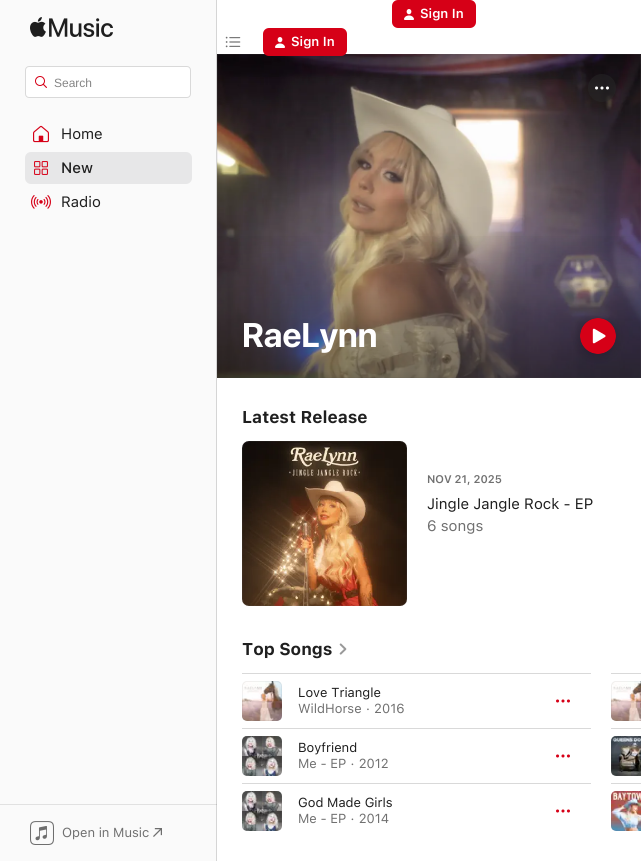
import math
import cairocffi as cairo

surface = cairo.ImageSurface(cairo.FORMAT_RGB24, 641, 861)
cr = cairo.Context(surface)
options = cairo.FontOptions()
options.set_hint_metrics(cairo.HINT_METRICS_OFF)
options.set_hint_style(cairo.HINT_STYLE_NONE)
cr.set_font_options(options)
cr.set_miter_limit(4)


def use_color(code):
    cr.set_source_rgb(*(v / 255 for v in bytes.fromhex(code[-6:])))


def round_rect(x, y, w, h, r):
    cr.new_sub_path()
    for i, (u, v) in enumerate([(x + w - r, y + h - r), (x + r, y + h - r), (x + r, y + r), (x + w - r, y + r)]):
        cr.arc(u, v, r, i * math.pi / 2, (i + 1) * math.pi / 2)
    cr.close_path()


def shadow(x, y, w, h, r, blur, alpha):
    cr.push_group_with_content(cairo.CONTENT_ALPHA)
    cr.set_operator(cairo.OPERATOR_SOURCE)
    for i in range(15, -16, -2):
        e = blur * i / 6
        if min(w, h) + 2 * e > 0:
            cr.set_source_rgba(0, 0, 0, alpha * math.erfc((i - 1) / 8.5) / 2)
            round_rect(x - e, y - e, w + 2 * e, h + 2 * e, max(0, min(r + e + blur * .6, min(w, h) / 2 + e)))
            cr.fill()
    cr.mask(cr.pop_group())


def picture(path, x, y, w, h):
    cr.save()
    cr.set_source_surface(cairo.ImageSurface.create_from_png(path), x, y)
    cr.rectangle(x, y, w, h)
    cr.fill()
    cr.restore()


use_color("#ffffff")
cr.paint()
use_color("#d60017")
round_rect(392, 0, 84, 28, 6)
cr.fill()
picture("img1.png", 404, 9, 10, 11)
cr.select_font_face("SF SemiBold")
cr.set_font_size(13)
use_color("#ffffff")
cr.move_to(420, 18)
cr.show_text("Sign In")
picture("img2.png", 225, 36, 16, 12)
picture("img10.png", 217, 54, 424, 324)
cr.rectangle(217.5, 54.5, 423, 323)
cr.set_source_rgba(0.502, 0.502, 0.502, 0.1)
cr.set_line_width(1)
cr.stroke()
use_color("#d60017")
round_rect(263, 28, 84, 28, 6)
cr.fill()
picture("img1.png", 275, 37, 10, 11)
use_color("#ffffff")
cr.move_to(291, 46)
cr.show_text("Sign In")
use_color("#fafafa")
cr.rectangle(0, 0, 216, 861)
cr.fill()
use_color("#e1e1e1")
cr.rectangle(0, 804, 217, 1)
cr.fill()
use_color("#d5d5d5")
cr.rectangle(216, 0, 1, 861)
cr.fill()
use_color("#c0c0c0")
cr.rectangle(216, 804, 1, 1)
cr.fill()
picture("img3.png", 30, 17, 83, 20)
use_color("#ffffff")
round_rect(25.5, 66.5, 165, 31, 3.5)
cr.fill_preserve()
use_color("#d9d9d9")
cr.stroke()
picture("img4.png", 35, 76, 12, 12)
cr.select_font_face("Liberation Sans")
cr.set_font_size(12)
use_color("#858585")
cr.move_to(54, 87)
cr.show_text("Search")
picture("img5.png", 33, 125, 16, 18)
cr.select_font_face("SF")
cr.set_font_size(15)
use_color("#1f1f1f")
cr.move_to(61, 139)
cr.show_text("Home")
use_color("#e7e7e8")
round_rect(25, 152, 167, 32, 6)
cr.fill()
picture("img6.png", 34, 161, 14, 14)
cr.select_font_face("SF Medium")
use_color("#1f1f1f")
cr.move_to(61, 173)
cr.show_text("New")
picture("img7.png", 31, 195, 20, 14)
cr.select_font_face("SF")
cr.move_to(61, 207)
cr.show_text("Radio")
picture("img8.png", 30, 821, 24, 24)
cr.set_font_size(13)
use_color("#707070")
cr.move_to(62, 837)
cr.show_text("Open in Music")
picture("img9.png", 153, 828, 9, 9)
gradient = cairo.LinearGradient(429, 378, 429, 228)
gradient.add_color_stop_rgba(0, 0, 0, 0, 0.36)
gradient.add_color_stop_rgba(0.36, 0, 0, 0, 0.25)
gradient.add_color_stop_rgba(1, 0, 0, 0, 0)
cr.set_source(gradient)
cr.rectangle(217, 236, 424, 142)
cr.fill()
cr.set_source_rgba(0.157, 0.157, 0.157, 0.5)
cr.arc(602, 88, 14, 0, 2 * math.pi)
cr.fill()
picture("img11.png", 595, 86, 14, 4)
cr.select_font_face("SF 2", cairo.FONT_SLANT_NORMAL, cairo.FONT_WEIGHT_BOLD)
cr.set_font_size(34)
use_color("#ffffff")
cr.move_to(242, 347)
cr.show_text("RaeLynn")
use_color("#000000")
shadow(580, 320, 36, 36, 18, 5, 0.2)
picture("img12.png", 580, 318, 36, 36)
cr.select_font_face("SF", cairo.FONT_SLANT_NORMAL, cairo.FONT_WEIGHT_BOLD)
cr.set_font_size(17)
use_color("#1f1f1f")
cr.move_to(242, 423)
cr.show_text("Latest Release")
picture("img13.png", 242, 441, 165, 165)
round_rect(242.5, 441.5, 164, 164, 6.5)
cr.set_source_rgba(0.502, 0.502, 0.502, 0.1)
cr.stroke()
cr.select_font_face("SF SemiBold")
cr.set_font_size(11)
use_color("#707070")
cr.move_to(427, 483)
cr.show_text("NOV 21, 2025")
cr.select_font_face("SF")
cr.set_font_size(15)
use_color("#1f1f1f")
cr.move_to(427, 509)
cr.show_text("Jingle Jangle Rock - EP")
use_color("#707070")
cr.move_to(427, 531)
cr.show_text("6 songs")
cr.select_font_face("SF", cairo.FONT_SLANT_NORMAL, cairo.FONT_WEIGHT_BOLD)
cr.set_font_size(17)
use_color("#1f1f1f")
cr.move_to(242, 655)
cr.show_text("Top Songs")
picture("img14.png", 339, 643, 8, 12)
use_color("#d9d9d9")
cr.rectangle(242, 673, 349, 1)
cr.fill()
picture("img15.png", 242, 681, 40, 40)
round_rect(242.5, 681.5, 39, 39, 4.5)
cr.set_source_rgba(0.502, 0.502, 0.502, 0.1)
cr.stroke()
cr.select_font_face("SF")
cr.set_font_size(13)
use_color("#1f1f1f")
cr.move_to(298, 697)
cr.show_text("Love Triangle")
use_color("#707070")
cr.move_to(298, 713)
cr.show_text("WildHorse · 2016")
picture("img16.png", 556, 699, 14, 4)
use_color("#d9d9d9")
cr.rectangle(611, 673, 30, 1)
cr.fill()
picture("img17.png", 611, 681, 30, 40)
round_rect(611.5, 681.5, 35, 39, 4.5)
cr.set_source_rgba(0.502, 0.502, 0.502, 0.1)
cr.stroke()
use_color("#d9d9d9")
cr.rectangle(242, 728, 349, 1)
cr.fill()
picture("img18.png", 242, 736, 40, 40)
round_rect(242.5, 736.5, 39, 39, 4.5)
cr.set_source_rgba(0.502, 0.502, 0.502, 0.1)
cr.stroke()
use_color("#1f1f1f")
cr.move_to(298, 752)
cr.show_text("Boyfriend")
use_color("#707070")
cr.move_to(298, 768)
cr.show_text("Me - EP · 2012")
picture("img16.png", 556, 754, 14, 4)
use_color("#d9d9d9")
cr.rectangle(611, 728, 30, 1)
cr.fill()
picture("img19.png", 611, 736, 30, 40)
round_rect(611.5, 736.5, 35, 39, 4.5)
cr.set_source_rgba(0.502, 0.502, 0.502, 0.1)
cr.stroke()
use_color("#d9d9d9")
cr.rectangle(242, 783, 349, 1)
cr.fill()
picture("img18.png", 242, 791, 40, 40)
round_rect(242.5, 791.5, 39, 39, 4.5)
cr.set_source_rgba(0.502, 0.502, 0.502, 0.1)
cr.stroke()
use_color("#1f1f1f")
cr.move_to(298, 807)
cr.show_text("God Made Girls")
use_color("#707070")
cr.move_to(298, 823)
cr.show_text("Me - EP · 2014")
picture("img16.png", 556, 809, 14, 4)
use_color("#d9d9d9")
cr.rectangle(611, 783, 30, 1)
cr.fill()
picture("img20.png", 611, 791, 30, 40)
round_rect(611.5, 791.5, 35, 39, 4.5)
cr.set_source_rgba(0.502, 0.502, 0.502, 0.1)
cr.stroke()
surface.write_to_png("result.png")
